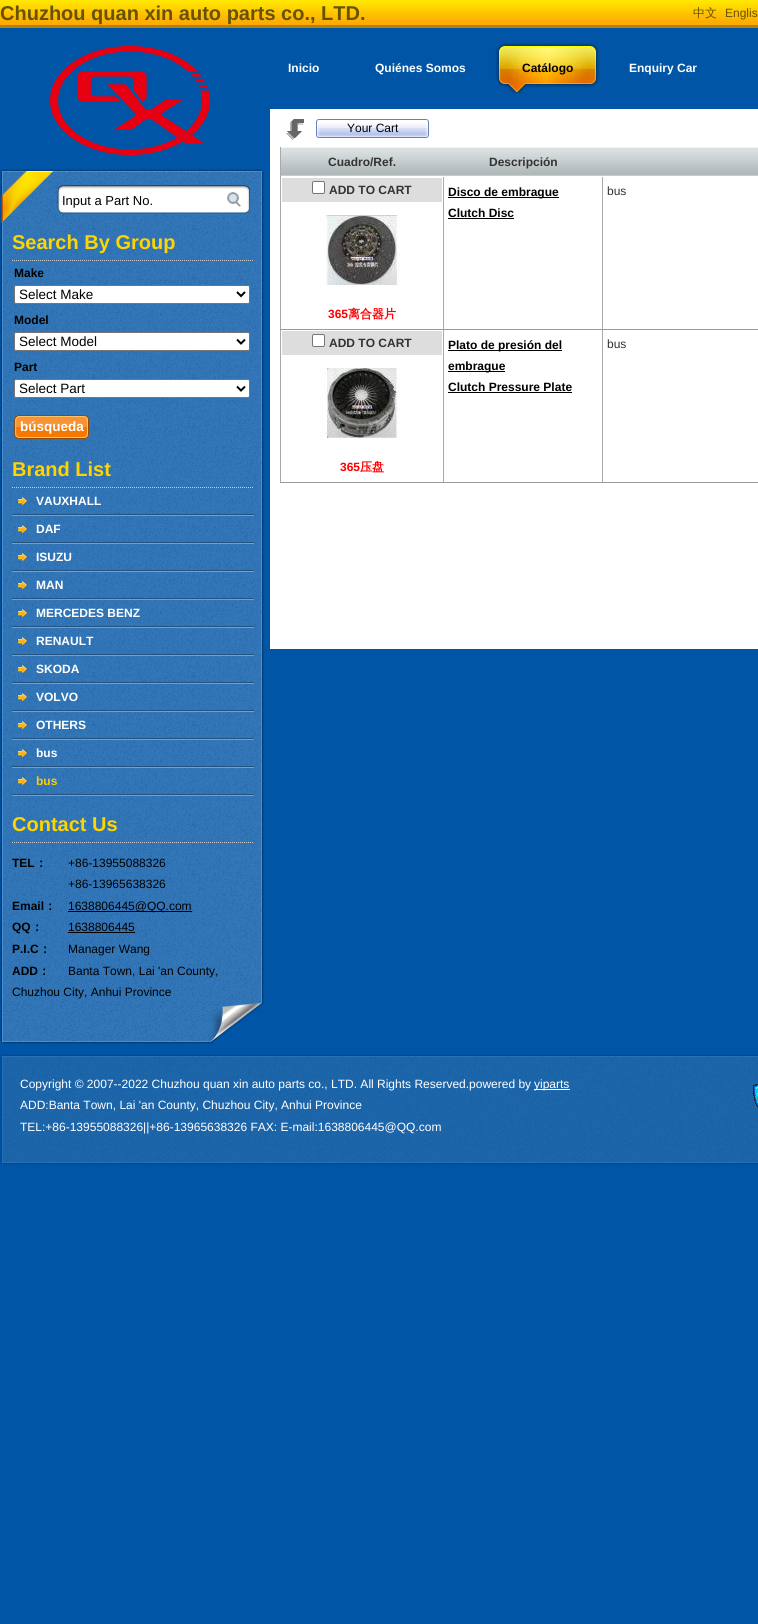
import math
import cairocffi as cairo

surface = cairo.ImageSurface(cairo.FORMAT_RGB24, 758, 1624)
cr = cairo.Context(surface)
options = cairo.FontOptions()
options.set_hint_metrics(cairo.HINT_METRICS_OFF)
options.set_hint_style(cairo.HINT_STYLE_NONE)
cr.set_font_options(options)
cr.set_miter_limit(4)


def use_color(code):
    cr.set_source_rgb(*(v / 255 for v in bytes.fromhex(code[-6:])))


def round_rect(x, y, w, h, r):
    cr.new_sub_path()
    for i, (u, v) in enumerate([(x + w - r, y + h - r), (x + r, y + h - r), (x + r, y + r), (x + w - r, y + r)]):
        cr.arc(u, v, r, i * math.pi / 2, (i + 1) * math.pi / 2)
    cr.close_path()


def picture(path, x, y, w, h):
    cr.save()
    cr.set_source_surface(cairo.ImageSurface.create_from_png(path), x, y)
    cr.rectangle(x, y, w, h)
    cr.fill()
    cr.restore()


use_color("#0055a6")
cr.paint()
picture("img1.png", 0, 0, 758, 28)
cr.select_font_face("Liberation Sans", cairo.FONT_SLANT_NORMAL, cairo.FONT_WEIGHT_BOLD)
cr.set_font_size(20)
use_color("#665200")
cr.move_to(0, 20)
cr.show_text("Chuzhou quan xin auto parts co., LTD.")
cr.select_font_face("WenQuanYi Zen Hei Medium")
cr.set_font_size(12)
cr.move_to(693, 17)
cr.show_text("中文")
cr.select_font_face("Liberation Sans")
cr.move_to(725, 17)
cr.show_text("Englis")
picture("img2.png", 50, 46, 160, 109)
picture("img3.png", 495, 42, 106, 52)
cr.select_font_face("Liberation Sans", cairo.FONT_SLANT_NORMAL, cairo.FONT_WEIGHT_BOLD)
use_color("#ffffff")
cr.move_to(288, 72)
cr.show_text("Inicio")
cr.move_to(375, 72)
cr.show_text("Quiénes Somos")
picture("img4.png", 551, 42, 50, 46)
use_color("#000000")
cr.move_to(522, 72)
cr.show_text("Catálogo")
use_color("#ffffff")
cr.move_to(629, 72)
cr.show_text("Enquiry Car")
picture("img5.png", 0, 223, 264, 779)
picture("img6.png", 0, 169, 264, 54)
picture("img7.png", 0, 1002, 264, 42)
picture("img8.png", 57, 185, 193, 29)
cr.select_font_face("Liberation Sans")
cr.set_font_size(13)
use_color("#000000")
cr.move_to(62, 205)
cr.show_text("Input a Part No.")
cr.new_path()
cr.move_to(12, 260.5)
cr.line_to(254, 260.5)
use_color("#cccccc")
cr.set_line_width(1)
cr.set_dash([1, 1])
cr.stroke()
cr.select_font_face("Liberation Sans", cairo.FONT_SLANT_NORMAL, cairo.FONT_WEIGHT_BOLD)
cr.set_font_size(20)
use_color("#ffd400")
cr.move_to(12, 249)
cr.show_text("Search By Group")
cr.set_font_size(12)
use_color("#000000")
cr.move_to(14, 277)
cr.show_text("Make")
use_color("#ffffff")
round_rect(14.5, 285.5, 235, 18, 1.5)
cr.fill_preserve()
use_color("#767676")
cr.set_dash([])
cr.stroke()
cr.new_path()
cr.move_to(237, 292)
cr.line_to(241, 296)
cr.line_to(245, 292)
use_color("#000000")
cr.set_line_width(2)
cr.stroke()
cr.select_font_face("Liberation Sans")
cr.set_font_size(13.5)
cr.move_to(19, 299)
cr.show_text("Select Make")
cr.select_font_face("Liberation Sans", cairo.FONT_SLANT_NORMAL, cairo.FONT_WEIGHT_BOLD)
cr.set_font_size(12)
cr.move_to(14, 324)
cr.show_text("Model")
use_color("#ffffff")
round_rect(14.5, 332.5, 235, 18, 1.5)
cr.fill_preserve()
use_color("#767676")
cr.set_line_width(1)
cr.stroke()
cr.new_path()
cr.move_to(237, 339.5)
cr.line_to(241, 343.5)
cr.line_to(245, 339.5)
use_color("#000000")
cr.set_line_width(2)
cr.stroke()
cr.select_font_face("Liberation Sans")
cr.set_font_size(13.5)
cr.move_to(19, 346)
cr.show_text("Select Model")
cr.select_font_face("Liberation Sans", cairo.FONT_SLANT_NORMAL, cairo.FONT_WEIGHT_BOLD)
cr.set_font_size(12)
cr.move_to(14, 371)
cr.show_text("Part")
use_color("#ffffff")
round_rect(14.5, 379.5, 235, 18, 1.5)
cr.fill_preserve()
use_color("#767676")
cr.set_line_width(1)
cr.stroke()
cr.new_path()
cr.move_to(237, 386.5)
cr.line_to(241, 390.5)
cr.line_to(245, 386.5)
use_color("#000000")
cr.set_line_width(2)
cr.stroke()
cr.select_font_face("Liberation Sans")
cr.set_font_size(13.5)
cr.move_to(19, 393)
cr.show_text("Select Part")
picture("img9.png", 14, 415, 75, 24)
cr.select_font_face("Liberation Sans", cairo.FONT_SLANT_NORMAL, cairo.FONT_WEIGHT_BOLD)
use_color("#ffffff")
cr.move_to(20, 431)
cr.show_text("búsqueda")
cr.new_path()
cr.move_to(12, 487.5)
cr.line_to(254, 487.5)
use_color("#cccccc")
cr.set_line_width(1)
cr.set_dash([1, 1])
cr.stroke()
cr.set_font_size(20)
use_color("#ffd400")
cr.move_to(12, 476)
cr.show_text("Brand List")
picture("img10.png", 12, 514, 242, 2)
picture("img11.png", 18, 497, 9, 8)
cr.set_font_size(12)
use_color("#ffffff")
cr.move_to(36, 505)
cr.show_text("VAUXHALL")
picture("img10.png", 12, 542, 242, 2)
picture("img12.png", 18, 525, 9, 8)
cr.move_to(36, 533)
cr.show_text("DAF")
picture("img10.png", 12, 570, 242, 2)
picture("img13.png", 18, 553, 9, 8)
cr.move_to(36, 561)
cr.show_text("ISUZU")
picture("img10.png", 12, 598, 242, 2)
picture("img14.png", 18, 581, 9, 8)
cr.move_to(36, 589)
cr.show_text("MAN")
picture("img10.png", 12, 626, 242, 2)
picture("img15.png", 18, 609, 9, 8)
cr.move_to(36, 617)
cr.show_text("MERCEDES BENZ")
picture("img10.png", 12, 654, 242, 2)
picture("img16.png", 18, 637, 9, 8)
cr.move_to(36, 645)
cr.show_text("RENAULT")
picture("img10.png", 12, 682, 242, 2)
picture("img17.png", 18, 665, 9, 8)
cr.move_to(36, 673)
cr.show_text("SKODA")
picture("img10.png", 12, 710, 242, 2)
picture("img18.png", 18, 693, 9, 8)
cr.move_to(36, 701)
cr.show_text("VOLVO")
picture("img10.png", 12, 738, 242, 2)
picture("img19.png", 18, 721, 9, 8)
cr.move_to(36, 729)
cr.show_text("OTHERS")
picture("img10.png", 12, 766, 242, 2)
picture("img20.png", 18, 749, 9, 8)
cr.move_to(36, 757)
cr.show_text("bus")
picture("img10.png", 12, 794, 242, 2)
picture("img21.png", 18, 777, 9, 8)
use_color("#ffcc00")
cr.move_to(36, 785)
cr.show_text("bus")
cr.new_path()
cr.move_to(12, 842.5)
cr.line_to(254, 842.5)
use_color("#cccccc")
cr.stroke()
cr.set_font_size(20)
use_color("#ffd400")
cr.move_to(12, 831)
cr.show_text("Contact Us")
cr.set_font_size(12)
use_color("#000000")
cr.move_to(12, 867)
cr.show_text("TEL")
cr.select_font_face("WenQuanYi Zen Hei", cairo.FONT_SLANT_NORMAL, cairo.FONT_WEIGHT_BOLD)
cr.move_to(35, 867)
cr.show_text("：")
cr.select_font_face("Liberation Sans")
cr.move_to(68, 867)
cr.show_text("+86-13955088326")
cr.move_to(68, 888)
cr.show_text("+86-13965638326")
cr.select_font_face("Liberation Sans", cairo.FONT_SLANT_NORMAL, cairo.FONT_WEIGHT_BOLD)
cr.move_to(12, 910)
cr.show_text("Email")
cr.select_font_face("WenQuanYi Zen Hei", cairo.FONT_SLANT_NORMAL, cairo.FONT_WEIGHT_BOLD)
cr.move_to(44, 910)
cr.show_text("：")
cr.rectangle(68, 911, 124, 1)
cr.fill()
cr.select_font_face("Liberation Sans")
cr.move_to(68, 910)
cr.show_text("1638806445@QQ.com")
cr.select_font_face("Liberation Sans", cairo.FONT_SLANT_NORMAL, cairo.FONT_WEIGHT_BOLD)
cr.move_to(12, 931)
cr.show_text("QQ")
cr.select_font_face("WenQuanYi Zen Hei", cairo.FONT_SLANT_NORMAL, cairo.FONT_WEIGHT_BOLD)
cr.move_to(31, 931)
cr.show_text("：")
cr.select_font_face("Liberation Sans")
cr.move_to(68, 931)
cr.show_text("1638806445")
cr.rectangle(68, 932, 67, 1)
cr.fill()
cr.select_font_face("Liberation Sans", cairo.FONT_SLANT_NORMAL, cairo.FONT_WEIGHT_BOLD)
cr.move_to(12, 953)
cr.show_text("P.I.C")
cr.select_font_face("WenQuanYi Zen Hei", cairo.FONT_SLANT_NORMAL, cairo.FONT_WEIGHT_BOLD)
cr.move_to(39, 953)
cr.show_text("：")
cr.select_font_face("Liberation Sans")
cr.move_to(68, 953)
cr.show_text("Manager Wang")
cr.select_font_face("Liberation Sans", cairo.FONT_SLANT_NORMAL, cairo.FONT_WEIGHT_BOLD)
cr.move_to(12, 975)
cr.show_text("ADD")
cr.select_font_face("WenQuanYi Zen Hei", cairo.FONT_SLANT_NORMAL, cairo.FONT_WEIGHT_BOLD)
cr.move_to(38, 975)
cr.show_text("：")
cr.select_font_face("Liberation Sans")
cr.move_to(68, 975)
cr.show_text("Banta Town, Lai 'an County,")
cr.move_to(12, 996)
cr.show_text("Chuzhou City, Anhui Province")
use_color("#ffffff")
cr.rectangle(270, 109, 488, 540)
cr.fill()
picture("img22.png", 286, 119, 18, 21)
picture("img23.png", 316, 119, 113, 19)
use_color("#000000")
cr.move_to(347, 132)
cr.show_text("Your Cart")
use_color("#aaaaaa")
cr.rectangle(280, 147, 1, 336)
cr.fill()
picture("img24.png", 281, 147, 163, 29)
cr.select_font_face("Liberation Sans", cairo.FONT_SLANT_NORMAL, cairo.FONT_WEIGHT_BOLD)
use_color("#333333")
cr.move_to(328, 166)
cr.show_text("Cuadro/Ref.")
picture("img25.png", 444, 147, 159, 29)
cr.move_to(489, 166)
cr.show_text("Descripción")
picture("img26.png", 603, 147, 155, 29)
use_color("#999999")
cr.rectangle(602, 482, 156, 1)
cr.fill()
use_color("#aaaaaa")
cr.rectangle(602, 329, 1, 154)
cr.fill()
use_color("#999999")
cr.rectangle(602, 329, 156, 1)
cr.fill()
use_color("#aaaaaa")
cr.rectangle(602, 177, 1, 153)
cr.fill()
use_color("#999999")
cr.rectangle(443, 482, 160, 1)
cr.fill()
use_color("#aaaaaa")
cr.rectangle(443, 329, 1, 154)
cr.fill()
use_color("#999999")
cr.rectangle(443, 329, 160, 1)
cr.fill()
use_color("#aaaaaa")
cr.rectangle(443, 177, 1, 153)
cr.fill()
use_color("#999999")
cr.rectangle(280, 329, 164, 1)
cr.fill()
use_color("#dddddd")
cr.rectangle(282, 178, 160, 24)
cr.fill()
use_color("#ffffff")
round_rect(312.5, 181.5, 12, 12, 1.5)
cr.fill_preserve()
use_color("#767676")
cr.set_dash([])
cr.stroke()
use_color("#333333")
cr.move_to(329, 194)
cr.show_text("ADD TO CART")
picture("img27.png", 320, 215, 80, 70)
use_color("#ff0000")
cr.move_to(328, 318)
cr.show_text("365")
cr.select_font_face("WenQuanYi Zen Hei", cairo.FONT_SLANT_NORMAL, cairo.FONT_WEIGHT_BOLD)
cr.move_to(348, 318)
cr.show_text("离合器片")
use_color("#000000")
cr.rectangle(448, 197, 111, 1)
cr.fill()
cr.select_font_face("Liberation Sans", cairo.FONT_SLANT_NORMAL, cairo.FONT_WEIGHT_BOLD)
cr.move_to(448, 196)
cr.show_text("Disco de embrague")
cr.move_to(448, 217)
cr.show_text("Clutch Disc")
cr.rectangle(448, 218, 66, 1)
cr.fill()
cr.select_font_face("Liberation Sans")
use_color("#333333")
cr.move_to(607, 195)
cr.show_text("bus")
use_color("#999999")
cr.rectangle(280, 482, 164, 1)
cr.fill()
use_color("#dddddd")
cr.rectangle(282, 331, 160, 24)
cr.fill()
use_color("#ffffff")
round_rect(312.5, 334.5, 12, 12, 1.5)
cr.fill_preserve()
use_color("#767676")
cr.stroke()
cr.select_font_face("Liberation Sans", cairo.FONT_SLANT_NORMAL, cairo.FONT_WEIGHT_BOLD)
use_color("#333333")
cr.move_to(329, 347)
cr.show_text("ADD TO CART")
picture("img28.png", 320, 368, 80, 70)
use_color("#ff0000")
cr.move_to(340, 471)
cr.show_text("365")
cr.select_font_face("WenQuanYi Zen Hei", cairo.FONT_SLANT_NORMAL, cairo.FONT_WEIGHT_BOLD)
cr.move_to(360, 471)
cr.show_text("压盘")
use_color("#000000")
cr.rectangle(448, 350, 114, 1)
cr.fill()
cr.select_font_face("Liberation Sans", cairo.FONT_SLANT_NORMAL, cairo.FONT_WEIGHT_BOLD)
cr.move_to(448, 349)
cr.show_text("Plato de presión del")
cr.rectangle(448, 371, 57, 1)
cr.fill()
cr.move_to(448, 370)
cr.show_text("embrague")
cr.move_to(448, 391)
cr.show_text("Clutch Pressure Plate")
cr.rectangle(448, 392, 124, 1)
cr.fill()
cr.select_font_face("Liberation Sans")
use_color("#333333")
cr.move_to(607, 348)
cr.show_text("bus")
picture("img29.png", 0, 1054, 758, 111)
use_color("#ffffff")
cr.move_to(20, 1088)
cr.show_text("Copyright © 2007--2022 Chuzhou quan xin auto parts co., LTD. All Rights Reserved.powered by")
cr.rectangle(534, 1089, 36, 1)
cr.fill()
cr.move_to(534, 1088)
cr.show_text("yiparts")
cr.move_to(20, 1109)
cr.show_text("ADD:Banta Town, Lai 'an County, Chuzhou City, Anhui Province")
cr.move_to(20, 1131)
cr.show_text("TEL:+86-13955088326||+86-13965638326 FAX: E-mail:1638806445@QQ.com")
picture("img30.png", 753, 1084, 5, 23)
surface.write_to_png("result.png")
